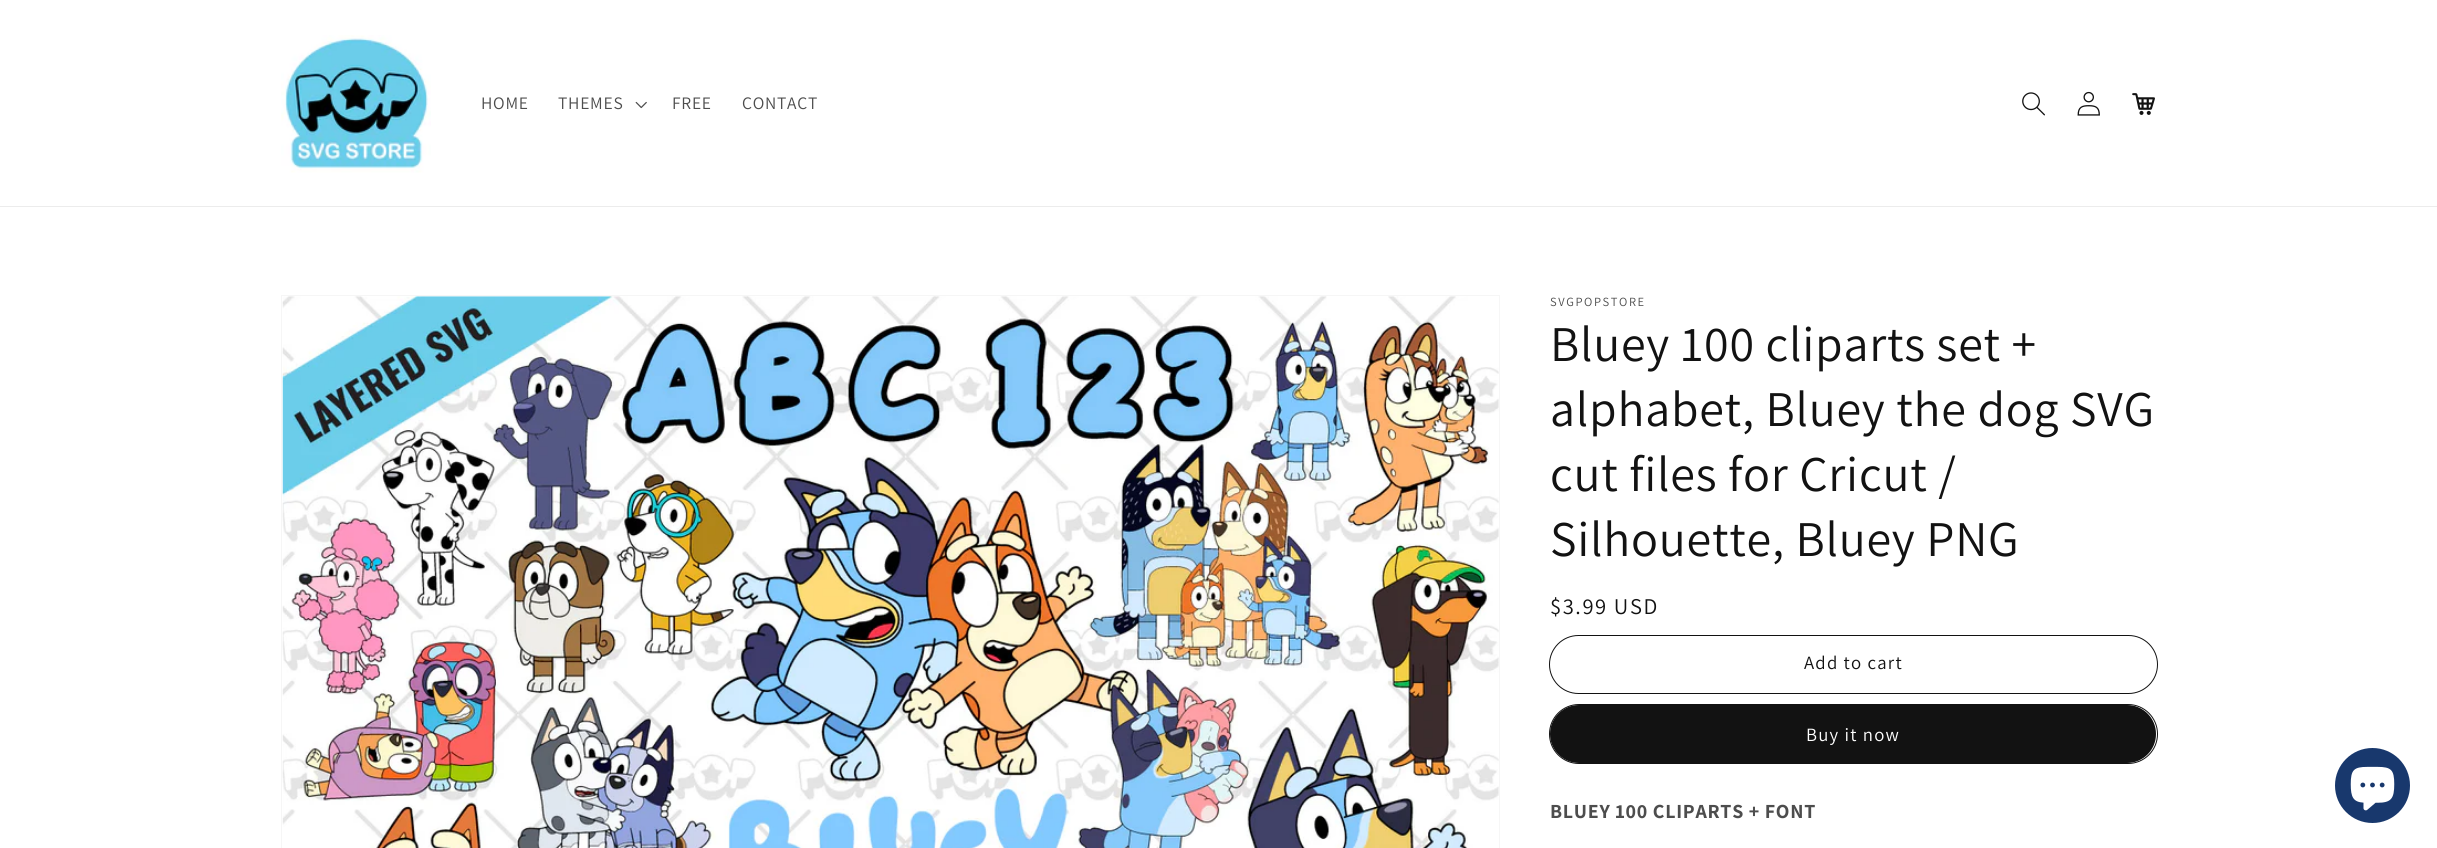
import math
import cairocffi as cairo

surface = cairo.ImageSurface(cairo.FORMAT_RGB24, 2437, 848)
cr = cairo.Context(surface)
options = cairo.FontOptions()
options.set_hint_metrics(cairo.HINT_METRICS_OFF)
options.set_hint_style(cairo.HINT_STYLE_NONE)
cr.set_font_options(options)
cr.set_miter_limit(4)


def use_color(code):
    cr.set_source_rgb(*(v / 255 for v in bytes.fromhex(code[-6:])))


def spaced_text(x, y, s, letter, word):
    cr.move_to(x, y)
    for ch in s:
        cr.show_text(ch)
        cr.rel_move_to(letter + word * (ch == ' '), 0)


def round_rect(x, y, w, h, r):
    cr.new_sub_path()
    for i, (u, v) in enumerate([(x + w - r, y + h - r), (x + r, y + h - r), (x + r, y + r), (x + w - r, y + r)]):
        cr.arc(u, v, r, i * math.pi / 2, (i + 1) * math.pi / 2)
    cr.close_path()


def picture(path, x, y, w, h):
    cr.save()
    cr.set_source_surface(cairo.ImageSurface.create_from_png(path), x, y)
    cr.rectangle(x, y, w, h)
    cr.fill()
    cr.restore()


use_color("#ffffff")
cr.paint()
use_color("#ececec")
cr.rectangle(0, 206, 2437, 1)
cr.fill()
picture("img1.png", 281, 35, 150, 138)
cr.select_font_face("Assistant")
cr.set_font_size(17.5)
use_color("#4d4d4d")
spaced_text(481, 109, "HOME", 0.75, 0)
spaced_text(558, 109, "THEMES", 0.75, 0)
picture("img2.png", 635, 101, 12, 8)
spaced_text(672, 109, "FREE", 0.75, 0)
spaced_text(742, 109, "CONTACT", 0.75, 0)
picture("img3.png", 2022, 92, 23, 24)
picture("img4.png", 2077, 91, 23, 25)
picture("img5.png", 2132, 93, 23, 22)
cr.rectangle(281.5, 295.5, 1218, 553)
use_color("#f6f6f6")
cr.set_line_width(1)
cr.stroke()
picture("img6.png", 282, 296, 1217, 552)
cr.set_font_size(12.5)
use_color("#4d4d4d")
spaced_text(1550, 306, "SVGPOPSTORE", 1.6, 0)
cr.set_font_size(50)
use_color("#121212")
spaced_text(1550, 361, "Bluey 100 cliparts set +", 0.75, 0)
spaced_text(1550, 426, "alphabet, Bluey the dog SVG", 0.75, 0)
spaced_text(1550, 491, "cut files for Cricut /", 0.75, 0)
spaced_text(1550, 556, "Silhouette, Bluey PNG", 0.75, 0)
cr.set_font_size(22.5)
spaced_text(1550, 614, "$3.99 USD", 1.6, 0)
round_rect(1549.5, 635.5, 608, 58, 29)
cr.stroke()
cr.set_font_size(18.75)
spaced_text(1804, 669, "Add to cart", 1.25, 0)
round_rect(1549.5, 704.5, 608, 59, 29.5)
cr.stroke()
round_rect(1550, 705, 606, 58, 29)
cr.fill()
use_color("#ffffff")
spaced_text(1806, 741, "Buy it now", 1.25, 0)
cr.select_font_face("Assistant", cairo.FONT_SLANT_NORMAL, cairo.FONT_WEIGHT_BOLD)
cr.set_font_size(20)
use_color("#4d4d4d")
spaced_text(1550, 818, "BLUEY 100 CLIPARTS + FONT", 0.75, 0)
use_color("#18386d")
cr.new_path()
cr.arc(2372.5, 785.5, 37.5, 0, 2 * math.pi)
cr.fill()
picture("img7.png", 2350, 766, 45, 45)
surface.write_to_png("result.png")
